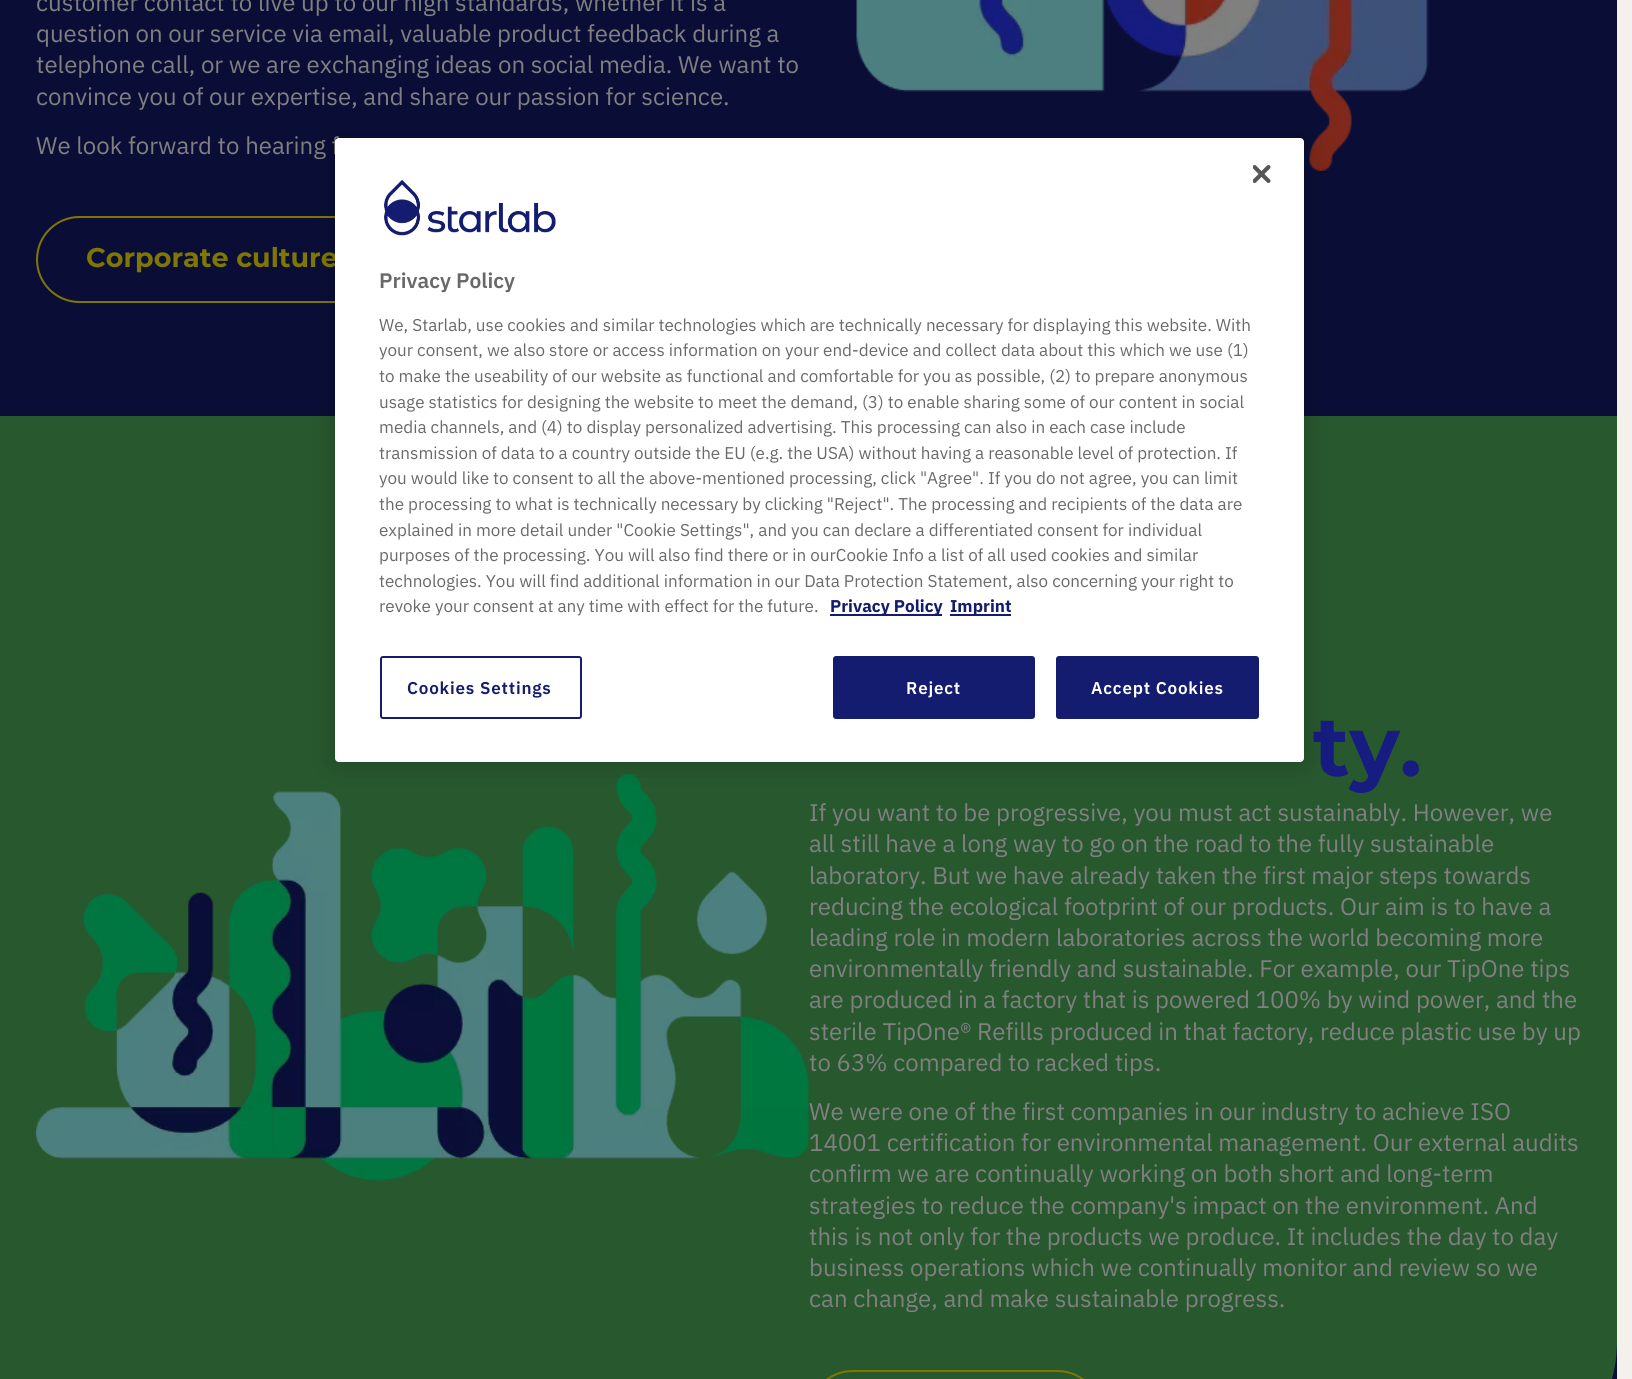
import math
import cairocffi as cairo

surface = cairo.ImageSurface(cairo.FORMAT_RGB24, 1632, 1379)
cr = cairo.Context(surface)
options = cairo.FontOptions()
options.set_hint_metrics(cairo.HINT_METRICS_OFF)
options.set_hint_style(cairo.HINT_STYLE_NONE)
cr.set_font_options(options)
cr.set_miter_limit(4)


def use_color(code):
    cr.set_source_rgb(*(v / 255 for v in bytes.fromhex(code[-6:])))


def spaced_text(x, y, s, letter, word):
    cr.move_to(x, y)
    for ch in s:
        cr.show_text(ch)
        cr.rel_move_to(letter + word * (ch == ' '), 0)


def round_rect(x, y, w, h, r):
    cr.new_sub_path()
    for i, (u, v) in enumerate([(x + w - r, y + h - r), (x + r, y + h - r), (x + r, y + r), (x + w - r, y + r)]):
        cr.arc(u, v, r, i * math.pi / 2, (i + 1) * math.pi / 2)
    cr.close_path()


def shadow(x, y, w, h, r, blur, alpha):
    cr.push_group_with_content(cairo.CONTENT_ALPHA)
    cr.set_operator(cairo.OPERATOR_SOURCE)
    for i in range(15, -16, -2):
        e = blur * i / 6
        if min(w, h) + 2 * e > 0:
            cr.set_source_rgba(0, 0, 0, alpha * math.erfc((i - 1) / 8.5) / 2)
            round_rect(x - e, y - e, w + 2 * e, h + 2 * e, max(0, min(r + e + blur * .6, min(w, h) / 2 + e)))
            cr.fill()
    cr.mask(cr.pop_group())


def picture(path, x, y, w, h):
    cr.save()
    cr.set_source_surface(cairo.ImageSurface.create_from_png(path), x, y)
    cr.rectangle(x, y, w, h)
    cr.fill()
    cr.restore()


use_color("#f4f1ec")
cr.paint()
use_color("#0a0e37")
cr.rectangle(0, 0, 1617, 416)
cr.fill()
cr.select_font_face("IBM Plex Sans")
cr.set_font_size(24)
use_color("#808080")
cr.move_to(36, 11)
cr.show_text("customer contact to live up to our high standards, whether it is a")
cr.move_to(36, 42)
cr.show_text("question on our service via email, valuable product feedback during a")
cr.move_to(36, 73)
cr.show_text("telephone call, or we are exchanging ideas on social media. We want to")
cr.move_to(36, 105)
cr.show_text("convince you of our expertise, and share our passion for science.")
cr.move_to(36, 154)
cr.show_text("We look forward to hearing f")
round_rect(37, 217, 349, 85, 42.5)
use_color("#807700")
cr.stroke()
cr.select_font_face("Montserrat Thin")
cr.set_font_size(27)
cr.move_to(86, 267)
cr.show_text("Corporate culture")
picture("img1.png", 856, 0, 573, 171)
use_color("#0a0e37")
cr.rectangle(1612, 1341, 5, 38)
cr.fill()
use_color("#27582e")
cr.new_path()
cr.move_to(0, 416)
cr.line_to(1617, 416)
cr.line_to(1617, 1341)
cr.curve_to(1617, 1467, 1456, 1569, 1257, 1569)
cr.line_to(0, 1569)
cr.close_path()
cr.fill()
picture("img2.png", 36, 774, 773, 407)
cr.set_font_size(84)
use_color("#161c80")
cr.move_to(1313, 776)
cr.show_text("ty.")
cr.select_font_face("IBM Plex Sans")
cr.set_font_size(24)
use_color("#808080")
cr.move_to(809, 821)
cr.show_text("If you want to be progressive, you must act sustainably. However, we")
cr.move_to(809, 852)
cr.show_text("all still have a long way to go on the road to the fully sustainable")
cr.move_to(809, 884)
cr.show_text("laboratory. But we have already taken the first major steps towards")
cr.move_to(809, 915)
cr.show_text("reducing the ecological footprint of our products. Our aim is to have a")
cr.move_to(809, 946)
cr.show_text("leading role in modern laboratories across the world becoming more")
cr.move_to(809, 977)
cr.show_text("environmentally friendly and sustainable. For example, our TipOne tips")
cr.move_to(809, 1008)
cr.show_text("are produced in a factory that is powered 100% by wind power, and the")
cr.move_to(809, 1040)
cr.show_text("sterile TipOne® Refills produced in that factory, reduce plastic use by up")
cr.move_to(809, 1071)
cr.show_text("to 63% compared to racked tips.")
cr.move_to(809, 1120)
cr.show_text("We were one of the first companies in our industry to achieve ISO")
cr.move_to(809, 1151)
cr.show_text("14001 certification for environmental management. Our external audits")
cr.move_to(809, 1182)
cr.show_text("confirm we are continually working on both short and long-term")
cr.move_to(809, 1214)
cr.show_text("strategies to reduce the company's impact on the environment. And")
cr.move_to(809, 1245)
cr.show_text("this is not only for the products we produce. It includes the day to day")
cr.move_to(809, 1276)
cr.show_text("business operations which we continually monitor and review so we")
cr.move_to(809, 1307)
cr.show_text("can change, and make sustainable progress.")
round_rect(810, 1371, 290, 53, 42.5)
use_color("#807700")
cr.stroke()
use_color("#000000")
shadow(335, 138, 969, 624, 4, 13.5, 0.2)
use_color("#ffffff")
round_rect(335, 138, 969, 624, 4)
cr.fill()
picture("img3.png", 1253, 165, 18, 18)
picture("img4.png", 384, 179, 172, 57)
cr.select_font_face("IBM Plex Sans SemiBold")
cr.set_font_size(21)
use_color("#696969")
cr.move_to(379, 288)
cr.show_text("Privacy Policy")
cr.select_font_face("IBM Plex Sans")
cr.set_font_size(17.07)
cr.move_to(379, 331)
cr.show_text("We, Starlab, use cookies and similar technologies which are technically necessary for displaying this website. With")
cr.move_to(379, 356)
cr.show_text("your consent, we also store or access information on your end-device and collect data about this which we use (1)")
cr.move_to(379, 382)
cr.show_text("to make the useability of our website as functional and comfortable for you as possible, (2) to prepare anonymous")
cr.move_to(379, 408)
cr.show_text("usage statistics for designing the website to meet the demand, (3) to enable sharing some of our content in social")
cr.move_to(379, 433)
cr.show_text("media channels, and (4) to display personalized advertising. This processing can also in each case include")
cr.move_to(379, 459)
cr.show_text("transmission of data to a country outside the EU (e.g. the USA) without having a reasonable level of protection. If")
cr.move_to(379, 484)
cr.show_text("you would like to consent to all the above-mentioned processing, click \"Agree\". If you do not agree, you can limit")
cr.move_to(379, 510)
cr.show_text("the processing to what is technically necessary by clicking \"Reject\". The processing and recipients of the data are")
cr.move_to(379, 536)
cr.show_text("explained in more detail under \"Cookie Settings\", and you can declare a differentiated consent for individual")
cr.move_to(379, 561)
cr.show_text("purposes of the processing. You will also find there or in ourCookie Info a list of all used cookies and similar")
cr.move_to(379, 587)
cr.show_text("technologies. You will find additional information in our Data Protection Statement, also concerning your right to")
cr.move_to(379, 612)
cr.show_text("revoke your consent at any time with effect for the future.")
use_color("#131c6e")
cr.rectangle(830, 614, 112, 2)
cr.fill()
cr.select_font_face("IBM Plex Sans", cairo.FONT_SLANT_NORMAL, cairo.FONT_WEIGHT_BOLD)
cr.move_to(830, 612)
cr.show_text("Privacy Policy")
cr.rectangle(950, 614, 61, 2)
cr.fill()
cr.move_to(950, 612)
cr.show_text("Imprint")
round_rect(381, 657, 200, 61, 2)
cr.stroke()
cr.select_font_face("IBM Plex Sans SemiBold")
spaced_text(407, 694, "Cookies Settings", 0.8, 0)
round_rect(834, 657, 200, 61, 2)
cr.fill_preserve()
cr.stroke()
use_color("#ffffff")
spaced_text(906, 694, "Reject", 0.8, 0)
use_color("#131c6e")
round_rect(1057, 657, 201, 61, 2)
cr.fill_preserve()
cr.stroke()
use_color("#ffffff")
spaced_text(1091, 694, "Accept Cookies", 0.8, 0)
surface.write_to_png("result.png")
